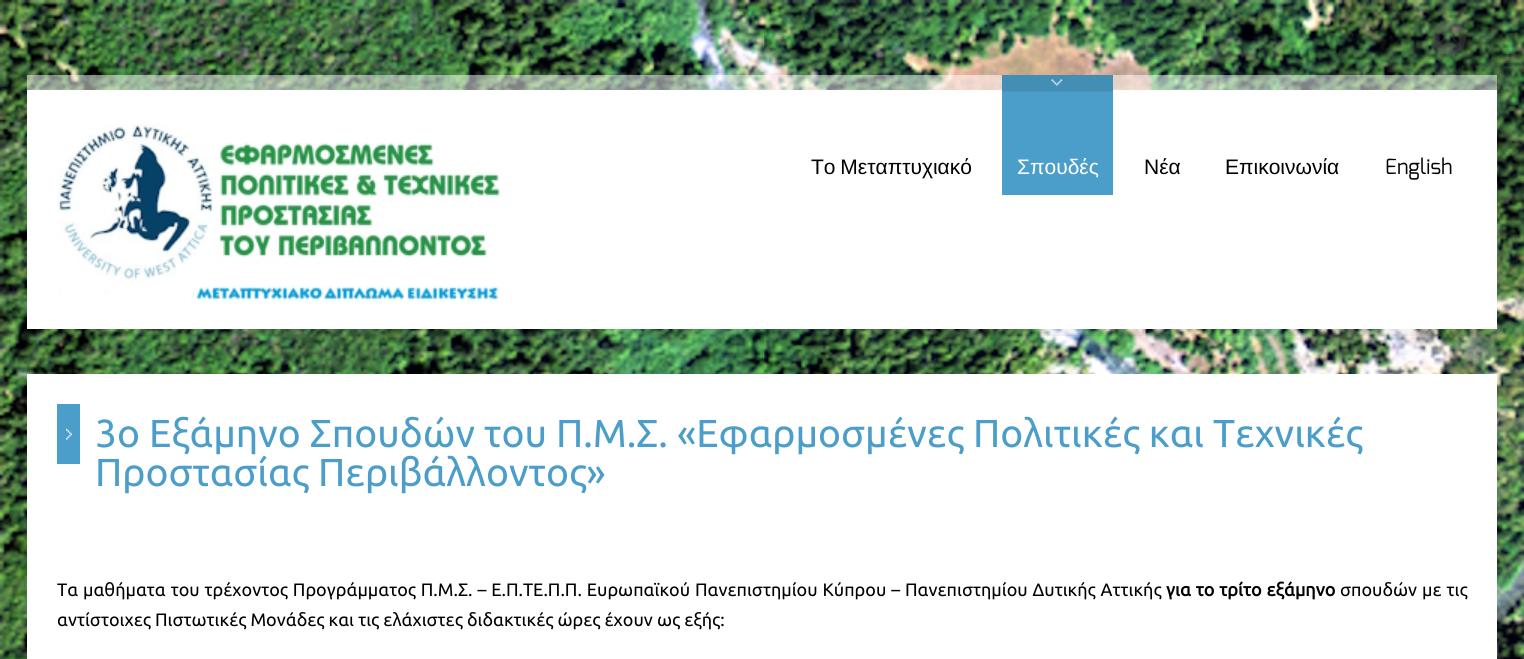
import math
import cairocffi as cairo

surface = cairo.ImageSurface(cairo.FORMAT_RGB24, 1524, 659)
cr = cairo.Context(surface)
options = cairo.FontOptions()
options.set_hint_metrics(cairo.HINT_METRICS_OFF)
options.set_hint_style(cairo.HINT_STYLE_NONE)
cr.set_font_options(options)
cr.set_miter_limit(4)


def use_color(code):
    cr.set_source_rgb(*(v / 255 for v in bytes.fromhex(code[-6:])))


def spaced_text(x, y, s, letter, word):
    cr.move_to(x, y)
    for ch in s:
        cr.show_text(ch)
        cr.rel_move_to(letter + word * (ch == ' '), 0)


def picture(path, x, y, w, h):
    cr.save()
    cr.set_source_surface(cairo.ImageSurface.create_from_png(path), x, y)
    cr.rectangle(x, y, w, h)
    cr.fill()
    cr.restore()


use_color("#ffffff")
cr.paint()
picture("img1.png", 0, 0, 1524, 659)
picture("img2.png", 1431, 19, 36, 37)
cr.set_source_rgba(1, 1, 1, 0.5)
cr.rectangle(27, 75, 1470, 15)
cr.fill()
cr.set_source_rgba(0, 0, 0, 0.05)
cr.rectangle(27, 329, 1470, 7)
cr.fill()
use_color("#ffffff")
cr.rectangle(27, 90, 1470, 239)
cr.fill()
picture("img3.png", 57, 123, 443, 179)
cr.select_font_face("Liberation Sans")
cr.set_font_size(21)
use_color("#000000")
spaced_text(811, 174, "Το Μεταπτυχιακό", 0, -1)
use_color("#4b9ec9")
cr.rectangle(1002, 75, 111, 120)
cr.fill()
picture("img4.png", 1002, 75, 111, 17)
use_color("#ffffff")
cr.move_to(1017, 174)
cr.show_text("Σπουδές")
use_color("#000000")
cr.move_to(1144, 174)
cr.show_text("Νέα")
cr.move_to(1225, 174)
cr.show_text("Επικοινωνία")
cr.select_font_face("Exo")
cr.move_to(1385, 174)
cr.show_text("English")
use_color("#ffffff")
cr.rectangle(27, 374, 1470, 285)
cr.fill()
use_color("#4b9ec9")
cr.rectangle(57, 404, 23, 60)
cr.fill()
picture("img5.png", 66, 429, 6, 11)
cr.select_font_face("Ubuntu")
cr.set_font_size(39)
cr.move_to(95, 447)
cr.show_text("3ο Εξάμηνο Σπουδών του Π.Μ.Σ. «Εφαρμοσμένες Πολιτικές και Τεχνικές")
cr.move_to(95, 486)
cr.show_text("Προστασίας Περιβάλλοντος»")
cr.set_font_size(18)
use_color("#000000")
spaced_text(57, 596, "Τα μαθήματα του τρέχοντος Προγράμματος Π.Μ.Σ. – Ε.Π.ΤΕ.Π.Π. Ευρωπαϊκού Πανεπιστημίου Κύπρου – Πανεπιστημίου Δυτικής Αττικής", 0, 0.75)
cr.select_font_face("Ubuntu", cairo.FONT_SLANT_NORMAL, cairo.FONT_WEIGHT_BOLD)
spaced_text(1166, 596, "για το τρίτο εξάμηνο", 0, 0.75)
cr.select_font_face("Ubuntu")
spaced_text(1340, 596, "σπουδών με τις", 0, 0.75)
cr.move_to(57, 626)
cr.show_text("αντίστοιχες Πιστωτικές Μονάδες και τις ελάχιστες διδακτικές ώρες έχουν ως εξής:")
surface.write_to_png("result.png")
